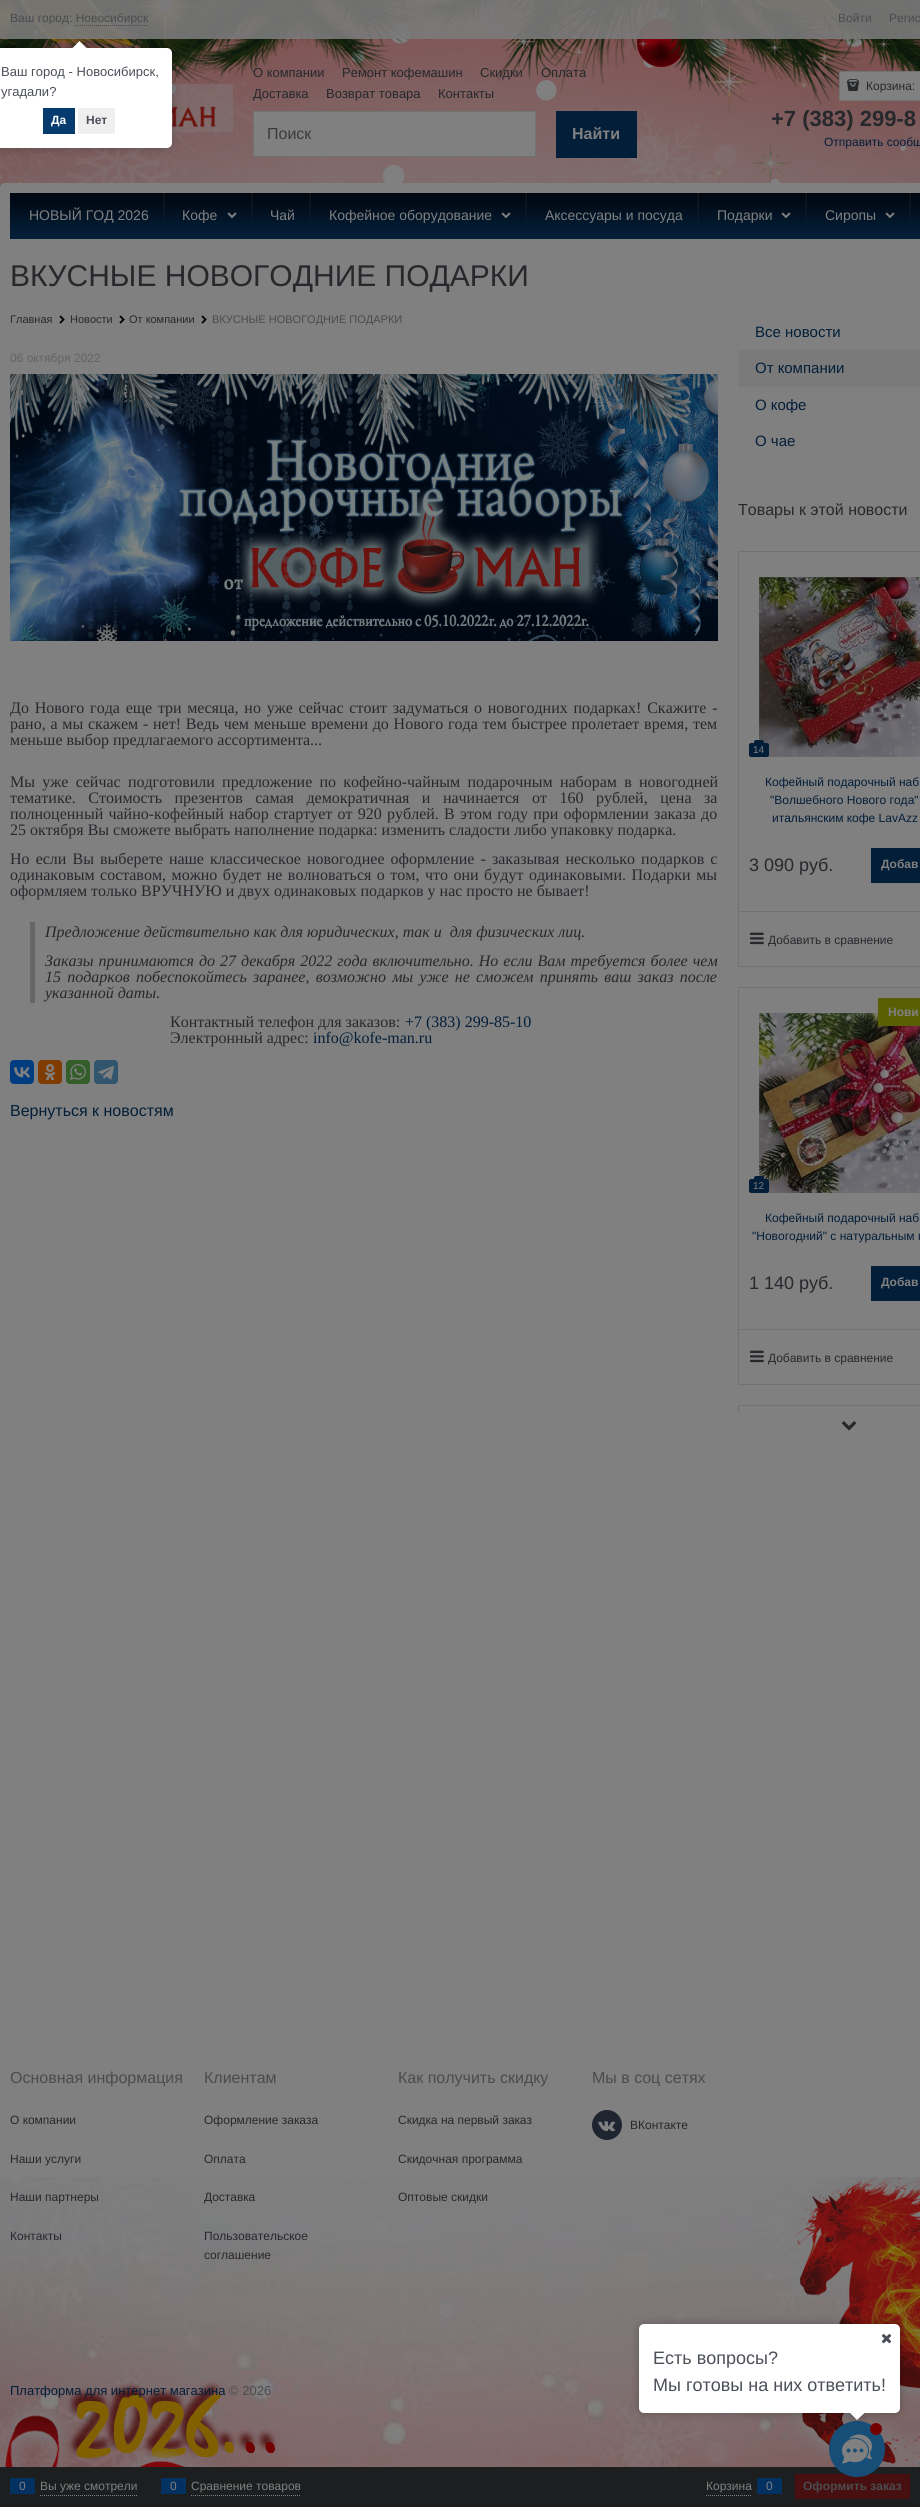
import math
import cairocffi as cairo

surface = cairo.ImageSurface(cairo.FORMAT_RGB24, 920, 2507)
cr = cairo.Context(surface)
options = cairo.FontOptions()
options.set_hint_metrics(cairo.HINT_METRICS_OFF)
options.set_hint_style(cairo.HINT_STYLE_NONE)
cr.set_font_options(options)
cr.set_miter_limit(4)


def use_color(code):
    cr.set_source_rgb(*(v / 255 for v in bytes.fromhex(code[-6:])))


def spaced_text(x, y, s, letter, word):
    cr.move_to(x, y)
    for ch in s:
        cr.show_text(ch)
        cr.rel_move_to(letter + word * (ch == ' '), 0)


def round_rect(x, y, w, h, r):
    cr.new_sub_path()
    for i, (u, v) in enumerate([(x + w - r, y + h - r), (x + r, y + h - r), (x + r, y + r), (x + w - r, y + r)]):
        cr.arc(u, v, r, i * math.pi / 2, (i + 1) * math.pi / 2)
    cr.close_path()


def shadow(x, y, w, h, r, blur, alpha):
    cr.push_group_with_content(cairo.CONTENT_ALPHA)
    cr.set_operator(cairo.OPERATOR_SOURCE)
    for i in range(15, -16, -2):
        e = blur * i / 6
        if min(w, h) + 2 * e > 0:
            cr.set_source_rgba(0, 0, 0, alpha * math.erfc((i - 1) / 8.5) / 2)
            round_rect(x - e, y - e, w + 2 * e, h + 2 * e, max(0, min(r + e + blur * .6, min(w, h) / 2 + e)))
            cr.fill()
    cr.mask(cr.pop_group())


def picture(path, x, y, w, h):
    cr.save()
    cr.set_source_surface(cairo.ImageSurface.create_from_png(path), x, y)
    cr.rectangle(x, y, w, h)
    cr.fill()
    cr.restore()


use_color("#808080")
cr.paint()
picture("img1.png", 0, 2177, 920, 290)
picture("img2.png", 0, 0, 920, 188)
cr.set_source_rgba(0.478, 0.478, 0.478, 0.9)
cr.rectangle(0, 0, 920, 39)
cr.fill()
cr.select_font_face("Liberation Sans")
cr.set_font_size(12)
use_color("#4a4b4e")
cr.move_to(10, 22)
cr.show_text("Ваш город: Новосибирск")
cr.new_path()
cr.move_to(76, 25.5)
cr.line_to(148, 25.5)
cr.set_line_width(1)
cr.set_dash([1, 1])
cr.stroke()
cr.move_to(838, 22)
cr.show_text("Войти")
cr.move_to(889, 22)
cr.show_text("Регис")
picture("img3.png", 172, 84, 61, 48)
cr.set_font_size(13)
use_color("#26282c")
cr.move_to(253, 77)
cr.show_text("О компании")
cr.move_to(342, 77)
cr.show_text("Ремонт кофемашин")
cr.move_to(480, 77)
cr.show_text("Скидки")
cr.move_to(541, 77)
cr.show_text("Оплата")
cr.move_to(253, 98)
cr.show_text("Доставка")
cr.move_to(326, 98)
cr.show_text("Возврат товара")
cr.move_to(438, 98)
cr.show_text("Контакты")
use_color("#808080")
cr.rectangle(253.5, 111.5, 282, 45)
cr.fill_preserve()
use_color("#717272")
cr.set_dash([])
cr.stroke()
cr.set_font_size(16)
use_color("#3b3b3b")
cr.move_to(267, 139)
cr.show_text("Поиск")
use_color("#031e38")
cr.rectangle(556, 111, 81, 47)
cr.fill()
cr.select_font_face("Liberation Sans", cairo.FONT_SLANT_NORMAL, cairo.FONT_WEIGHT_BOLD)
use_color("#808080")
cr.move_to(572, 139)
cr.show_text("Найти")
cr.rectangle(839.5, 71.5, 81, 29)
cr.fill_preserve()
use_color("#717272")
cr.stroke()
picture("img4.png", 847, 79, 12, 12)
cr.select_font_face("Liberation Sans")
cr.set_font_size(12)
use_color("#26282c")
cr.move_to(866, 90)
cr.show_text("Корзина:")
cr.select_font_face("Liberation Sans", cairo.FONT_SLANT_NORMAL, cairo.FONT_WEIGHT_BOLD)
cr.set_font_size(22)
cr.move_to(771, 126)
cr.show_text("+7 (383) 299-8")
cr.select_font_face("Liberation Sans")
cr.set_font_size(12)
use_color("#031e38")
cr.move_to(824, 146)
cr.show_text("Отправить сообщ")
use_color("#808080")
round_rect(0, 183, 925, 1280, 5)
cr.fill()
gradient = cairo.LinearGradient(485, 193, 485, 239)
gradient.add_color_stop_rgba(0, 0, 0.027, 0.063, 1)
gradient.add_color_stop_rgba(0.18, 0.004, 0.039, 0.09, 1)
gradient.add_color_stop_rgba(0.26, 0, 0.047, 0.102, 1)
gradient.add_color_stop_rgba(0.38, 0.008, 0.063, 0.122, 1)
gradient.add_color_stop_rgba(0.59, 0.008, 0.086, 0.165, 1)
gradient.add_color_stop_rgba(0.64, 0.008, 0.094, 0.169, 1)
gradient.add_color_stop_rgba(0.77, 0.012, 0.102, 0.2, 1)
gradient.add_color_stop_rgba(0.82, 0.008, 0.11, 0.204, 1)
gradient.add_color_stop_rgba(0.95, 0.016, 0.118, 0.22, 1)
gradient.add_color_stop_rgba(1, 0.012, 0.118, 0.22, 1)
cr.set_source(gradient)
cr.rectangle(10, 193, 910, 46)
cr.fill()
cr.set_font_size(14)
use_color("#808080")
cr.move_to(29, 220)
cr.show_text("НОВЫЙ ГОД 2026")
gradient = cairo.LinearGradient(165, 193, 165, 239)
gradient.add_color_stop_rgba(0, 0.502, 0.502, 0.502, 0.14)
gradient.add_color_stop_rgba(0.72, 0.502, 0.502, 0.502, 0.02)
gradient.add_color_stop_rgba(1, 0.502, 0.502, 0.502, 0)
cr.set_source(gradient)
cr.rectangle(164, 193, 1, 33)
cr.fill()
gradient = cairo.LinearGradient(164, 193, 164, 239)
gradient.add_color_stop_rgba(0, 0.114, 0.114, 0.114, 0.39)
gradient.add_color_stop_rgba(0.17, 0.114, 0.114, 0.114, 0.33)
gradient.add_color_stop_rgba(0.61, 0.114, 0.114, 0.114, 0.12)
gradient.add_color_stop_rgba(0.96, 0.114, 0.114, 0.114, 0.01)
gradient.add_color_stop_rgba(0.98, 0.502, 0.502, 0.502, 0.01)
gradient.add_color_stop_rgba(1, 0.502, 0.502, 0.502, 0)
cr.set_source(gradient)
cr.rectangle(163, 193, 1, 33)
cr.fill()
use_color("#808080")
cr.move_to(182, 220)
cr.show_text("Кофе")
picture("img5.png", 227, 212, 10, 7)
gradient = cairo.LinearGradient(253, 193, 253, 239)
gradient.add_color_stop_rgba(0, 0.502, 0.502, 0.502, 0.14)
gradient.add_color_stop_rgba(0.72, 0.502, 0.502, 0.502, 0.02)
gradient.add_color_stop_rgba(1, 0.502, 0.502, 0.502, 0)
cr.set_source(gradient)
cr.rectangle(252, 193, 1, 33)
cr.fill()
gradient = cairo.LinearGradient(252, 193, 252, 239)
gradient.add_color_stop_rgba(0, 0.114, 0.114, 0.114, 0.39)
gradient.add_color_stop_rgba(0.17, 0.114, 0.114, 0.114, 0.33)
gradient.add_color_stop_rgba(0.61, 0.114, 0.114, 0.114, 0.12)
gradient.add_color_stop_rgba(0.96, 0.114, 0.114, 0.114, 0.01)
gradient.add_color_stop_rgba(0.98, 0.502, 0.502, 0.502, 0.01)
gradient.add_color_stop_rgba(1, 0.502, 0.502, 0.502, 0)
cr.set_source(gradient)
cr.rectangle(251, 193, 1, 33)
cr.fill()
use_color("#808080")
cr.move_to(270, 220)
cr.show_text("Чай")
gradient = cairo.LinearGradient(311, 193, 311, 239)
gradient.add_color_stop_rgba(0, 0.502, 0.502, 0.502, 0.14)
gradient.add_color_stop_rgba(0.72, 0.502, 0.502, 0.502, 0.02)
gradient.add_color_stop_rgba(1, 0.502, 0.502, 0.502, 0)
cr.set_source(gradient)
cr.rectangle(310, 193, 1, 33)
cr.fill()
gradient = cairo.LinearGradient(310, 193, 310, 239)
gradient.add_color_stop_rgba(0, 0.114, 0.114, 0.114, 0.39)
gradient.add_color_stop_rgba(0.17, 0.114, 0.114, 0.114, 0.33)
gradient.add_color_stop_rgba(0.61, 0.114, 0.114, 0.114, 0.12)
gradient.add_color_stop_rgba(0.96, 0.114, 0.114, 0.114, 0.01)
gradient.add_color_stop_rgba(0.98, 0.502, 0.502, 0.502, 0.01)
gradient.add_color_stop_rgba(1, 0.502, 0.502, 0.502, 0)
cr.set_source(gradient)
cr.rectangle(309, 193, 1, 33)
cr.fill()
use_color("#808080")
cr.move_to(329, 220)
cr.show_text("Кофейное оборудование")
picture("img5.png", 501, 212, 10, 7)
gradient = cairo.LinearGradient(527, 193, 527, 239)
gradient.add_color_stop_rgba(0, 0.502, 0.502, 0.502, 0.14)
gradient.add_color_stop_rgba(0.72, 0.502, 0.502, 0.502, 0.02)
gradient.add_color_stop_rgba(1, 0.502, 0.502, 0.502, 0)
cr.set_source(gradient)
cr.rectangle(526, 193, 1, 33)
cr.fill()
gradient = cairo.LinearGradient(526, 193, 526, 239)
gradient.add_color_stop_rgba(0, 0.114, 0.114, 0.114, 0.39)
gradient.add_color_stop_rgba(0.17, 0.114, 0.114, 0.114, 0.33)
gradient.add_color_stop_rgba(0.61, 0.114, 0.114, 0.114, 0.12)
gradient.add_color_stop_rgba(0.96, 0.114, 0.114, 0.114, 0.01)
gradient.add_color_stop_rgba(0.98, 0.502, 0.502, 0.502, 0.01)
gradient.add_color_stop_rgba(1, 0.502, 0.502, 0.502, 0)
cr.set_source(gradient)
cr.rectangle(525, 193, 1, 33)
cr.fill()
use_color("#808080")
cr.move_to(545, 220)
cr.show_text("Аксессуары и посуда")
gradient = cairo.LinearGradient(699, 193, 699, 239)
gradient.add_color_stop_rgba(0, 0.502, 0.502, 0.502, 0.14)
gradient.add_color_stop_rgba(0.72, 0.502, 0.502, 0.502, 0.02)
gradient.add_color_stop_rgba(1, 0.502, 0.502, 0.502, 0)
cr.set_source(gradient)
cr.rectangle(698, 193, 1, 33)
cr.fill()
gradient = cairo.LinearGradient(698, 193, 698, 239)
gradient.add_color_stop_rgba(0, 0.114, 0.114, 0.114, 0.39)
gradient.add_color_stop_rgba(0.17, 0.114, 0.114, 0.114, 0.33)
gradient.add_color_stop_rgba(0.61, 0.114, 0.114, 0.114, 0.12)
gradient.add_color_stop_rgba(0.96, 0.114, 0.114, 0.114, 0.01)
gradient.add_color_stop_rgba(0.98, 0.502, 0.502, 0.502, 0.01)
gradient.add_color_stop_rgba(1, 0.502, 0.502, 0.502, 0)
cr.set_source(gradient)
cr.rectangle(697, 193, 1, 33)
cr.fill()
use_color("#808080")
cr.move_to(717, 220)
cr.show_text("Подарки")
picture("img5.png", 781, 212, 10, 7)
gradient = cairo.LinearGradient(807, 193, 807, 239)
gradient.add_color_stop_rgba(0, 0.502, 0.502, 0.502, 0.14)
gradient.add_color_stop_rgba(0.72, 0.502, 0.502, 0.502, 0.02)
gradient.add_color_stop_rgba(1, 0.502, 0.502, 0.502, 0)
cr.set_source(gradient)
cr.rectangle(806, 193, 1, 33)
cr.fill()
gradient = cairo.LinearGradient(806, 193, 806, 239)
gradient.add_color_stop_rgba(0, 0.114, 0.114, 0.114, 0.39)
gradient.add_color_stop_rgba(0.17, 0.114, 0.114, 0.114, 0.33)
gradient.add_color_stop_rgba(0.61, 0.114, 0.114, 0.114, 0.12)
gradient.add_color_stop_rgba(0.96, 0.114, 0.114, 0.114, 0.01)
gradient.add_color_stop_rgba(0.98, 0.502, 0.502, 0.502, 0.01)
gradient.add_color_stop_rgba(1, 0.502, 0.502, 0.502, 0)
cr.set_source(gradient)
cr.rectangle(805, 193, 1, 33)
cr.fill()
use_color("#808080")
cr.move_to(825, 220)
cr.show_text("Сиропы")
picture("img5.png", 885, 212, 10, 7)
gradient = cairo.LinearGradient(911, 193, 911, 239)
gradient.add_color_stop_rgba(0, 0.502, 0.502, 0.502, 0.14)
gradient.add_color_stop_rgba(0.72, 0.502, 0.502, 0.502, 0.02)
gradient.add_color_stop_rgba(1, 0.502, 0.502, 0.502, 0)
cr.set_source(gradient)
cr.rectangle(910, 193, 1, 33)
cr.fill()
gradient = cairo.LinearGradient(910, 193, 910, 239)
gradient.add_color_stop_rgba(0, 0.114, 0.114, 0.114, 0.39)
gradient.add_color_stop_rgba(0.17, 0.114, 0.114, 0.114, 0.33)
gradient.add_color_stop_rgba(0.61, 0.114, 0.114, 0.114, 0.12)
gradient.add_color_stop_rgba(0.96, 0.114, 0.114, 0.114, 0.01)
gradient.add_color_stop_rgba(0.98, 0.502, 0.502, 0.502, 0.01)
gradient.add_color_stop_rgba(1, 0.502, 0.502, 0.502, 0)
cr.set_source(gradient)
cr.rectangle(909, 193, 1, 33)
cr.fill()
cr.set_font_size(30)
use_color("#26282c")
cr.move_to(10, 286)
cr.show_text("ВКУСНЫЕ НОВОГОДНИЕ ПОДАРКИ")
cr.set_font_size(11)
cr.move_to(10, 323)
cr.show_text("Главная")
picture("img6.png", 59, 315, 6, 9)
cr.move_to(70, 323)
cr.show_text("Новости")
picture("img6.png", 119, 315, 6, 9)
cr.move_to(129, 323)
cr.show_text("От компании")
picture("img6.png", 201, 315, 6, 9)
use_color("#4a4b4e")
cr.move_to(212, 323)
cr.show_text("ВКУСНЫЕ НОВОГОДНИЕ ПОДАРКИ")
cr.set_font_size(12)
use_color("#626262")
cr.move_to(10, 362)
cr.show_text("06 октября 2022")
picture("img7.png", 10, 374, 708, 267)
cr.select_font_face("Liberation Serif")
cr.set_font_size(16)
use_color("#26282c")
spaced_text(10, 713, "До Нового года еще три месяца, но уже сейчас стоит задуматься о новогодних подарках! Скажите -", 0, 1.75)
spaced_text(10, 729, "рано, а мы скажем - нет! Ведь чем меньше времени до Нового года тем быстрее пролетает время, тем", 0, 0.75)
cr.move_to(10, 745)
cr.show_text("меньше выбор предлагаемого ассортимента...")
spaced_text(10, 787, "Мы уже сейчас подготовили предложение по кофейно-чайным подарочным наборам в новогодней", 0, 3.25)
spaced_text(10, 803, "тематике. Стоимость презентов самая демократичная и начинается от 160 рублей, цена за", 0, 8.5)
spaced_text(10, 819, "полноценный чайно-кофейный набор стартует от 920 рублей. В этом году при оформлении заказа до", 0, 1.25)
cr.move_to(10, 835)
cr.show_text("25 октября Вы сможете выбрать наполнение подарка: изменить сладости либо упаковку подарка.")
spaced_text(10, 864, "Но если Вы выберете наше классическое новогоднее оформление - заказывая несколько подарков с", 0, 2.1)
spaced_text(10, 880, "одинаковым составом, можно будет не волноваться о том, что они будут одинаковыми. Подарки мы", 0, 1.5)
cr.move_to(10, 896)
cr.show_text("оформляем только ВРУЧНУЮ и двух одинаковых подарков у нас просто не бывает!")
use_color("#666666")
cr.rectangle(30, 922, 5, 81)
cr.fill()
cr.select_font_face("Liberation Serif", cairo.FONT_SLANT_ITALIC)
use_color("#26282c")
cr.move_to(45, 937)
cr.show_text("Предложение действительно как для юридических, так и  для физических лиц.")
spaced_text(45, 966, "Заказы принимаются до 27 декабря 2022 года включительно. Но если Вам требуется более чем", 0, 1)
spaced_text(45, 982, "15 подарков побеспокойтесь заранее, возможно мы уже не сможем принять ваш заказ после", 0, 2.25)
cr.move_to(45, 998)
cr.show_text("указанной даты.")
cr.select_font_face("Liberation Serif")
cr.move_to(170, 1027)
cr.show_text("Контактный телефон для заказов:")
use_color("#031e38")
cr.move_to(405, 1027)
cr.show_text("+7 (383) 299-85-10")
use_color("#26282c")
cr.move_to(170, 1043)
cr.show_text("Электронный адрес:")
use_color("#031e38")
cr.move_to(313, 1043)
cr.show_text("info@kofe-man.ru")
use_color("#003c80")
round_rect(10, 1060, 24, 24, 4)
cr.fill()
picture("img8.png", 14, 1067, 16, 11)
use_color("#803c00")
round_rect(38, 1060, 24, 24, 4)
cr.fill()
picture("img9.png", 44, 1064, 12, 16)
use_color("#335e2a")
round_rect(66, 1060, 24, 24, 4)
cr.fill()
picture("img10.png", 70, 1064, 16, 16)
use_color("#32556e")
round_rect(94, 1060, 24, 24, 4)
cr.fill()
picture("img11.png", 98, 1066, 16, 14)
cr.select_font_face("Liberation Sans")
use_color("#031e38")
cr.move_to(10, 1116)
cr.show_text("Вернуться к новостям")
cr.set_font_size(15)
cr.move_to(755, 337)
cr.show_text("Все новости")
use_color("#7a7a7a")
cr.rectangle(738, 350, 182, 37)
cr.fill()
use_color("#031e38")
cr.move_to(755, 373)
cr.show_text("От компании")
cr.move_to(755, 410)
cr.show_text("О кофе")
cr.move_to(755, 446)
cr.show_text("О чае")
cr.set_font_size(16)
use_color("#26282c")
cr.move_to(738, 515)
cr.show_text("Товары к этой новости")
cr.rectangle(738.5, 551.5, 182, 415)
use_color("#717272")
cr.stroke()
picture("img12.png", 759, 577, 161, 180)
use_color("#031e38")
round_rect(749, 743, 20, 14, 2)
cr.fill()
cr.new_path()
cr.move_to(756, 740)
cr.line_to(762, 740)
cr.curve_to(763, 740, 764, 741, 764, 742)
cr.line_to(764, 743)
cr.line_to(754, 743)
cr.line_to(754, 742)
cr.curve_to(754, 741, 755, 740, 756, 740)
cr.close_path()
cr.fill()
cr.set_font_size(10)
use_color("#808080")
cr.move_to(753, 753)
cr.show_text("14")
cr.set_font_size(12)
use_color("#031e38")
cr.move_to(765, 786)
cr.show_text("Кофейный подарочный наб")
cr.move_to(770, 804)
cr.show_text("\"Волшебного Нового года\"")
cr.move_to(772, 822)
cr.show_text("итальянским кофе LavAzz")
cr.set_font_size(18)
use_color("#26282c")
cr.move_to(749, 871)
cr.show_text("3 090 руб.")
use_color("#031e38")
cr.rectangle(871, 848, 49, 35)
cr.fill()
cr.select_font_face("Liberation Sans", cairo.FONT_SLANT_NORMAL, cairo.FONT_WEIGHT_BOLD)
cr.set_font_size(12)
use_color("#808080")
cr.move_to(881, 868)
cr.show_text("Добав")
use_color("#717272")
cr.rectangle(739, 911, 181, 1)
cr.fill()
picture("img13.png", 750, 932, 14, 13)
cr.select_font_face("Liberation Sans")
use_color("#26282c")
cr.move_to(768, 944)
cr.show_text("Добавить в сравнение")
cr.rectangle(738.5, 987.5, 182, 397)
use_color("#717272")
cr.stroke()
picture("img14.png", 759, 1013, 161, 180)
use_color("#5a5f04")
cr.rectangle(878, 998, 42, 28)
cr.fill()
cr.select_font_face("Liberation Sans", cairo.FONT_SLANT_NORMAL, cairo.FONT_WEIGHT_BOLD)
use_color("#808080")
cr.move_to(888, 1016)
cr.show_text("Нови")
use_color("#031e38")
round_rect(749, 1179, 20, 14, 2)
cr.fill()
cr.new_path()
cr.move_to(756, 1176)
cr.line_to(762, 1176)
cr.curve_to(763, 1176, 764, 1177, 764, 1178)
cr.line_to(764, 1179)
cr.line_to(754, 1179)
cr.line_to(754, 1178)
cr.curve_to(754, 1177, 755, 1176, 756, 1176)
cr.close_path()
cr.fill()
cr.select_font_face("Liberation Sans")
cr.set_font_size(10)
use_color("#808080")
cr.move_to(753, 1189)
cr.show_text("12")
cr.set_font_size(12)
use_color("#031e38")
cr.move_to(765, 1222)
cr.show_text("Кофейный подарочный наб")
cr.move_to(752, 1240)
cr.show_text("\"Новогодний\" с натуральным к")
cr.set_font_size(18)
use_color("#26282c")
cr.move_to(749, 1289)
cr.show_text("1 140 руб.")
use_color("#031e38")
cr.rectangle(871, 1266, 49, 35)
cr.fill()
cr.select_font_face("Liberation Sans", cairo.FONT_SLANT_NORMAL, cairo.FONT_WEIGHT_BOLD)
cr.set_font_size(12)
use_color("#808080")
cr.move_to(881, 1286)
cr.show_text("Добав")
use_color("#717272")
cr.rectangle(739, 1329, 181, 1)
cr.fill()
picture("img13.png", 750, 1350, 14, 13)
cr.select_font_face("Liberation Sans")
use_color("#26282c")
cr.move_to(768, 1362)
cr.show_text("Добавить в сравнение")
cr.save()
cr.rectangle(728, 541, 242, 872)
cr.clip()
cr.rectangle(738.5, 1405.5, 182, 397)
use_color("#717272")
cr.stroke()
cr.restore()
picture("img15.png", 841, 1421, 16, 10)
cr.set_font_size(16)
use_color("#4a4b4e")
cr.move_to(10, 2083)
cr.show_text("Основная информация")
cr.set_font_size(12)
use_color("#26282c")
cr.move_to(10, 2124)
cr.show_text("О компании")
cr.move_to(10, 2163)
cr.show_text("Наши услуги")
cr.move_to(10, 2201)
cr.show_text("Наши партнеры")
cr.move_to(10, 2240)
cr.show_text("Контакты")
cr.set_font_size(16)
use_color("#4a4b4e")
cr.move_to(204, 2083)
cr.show_text("Клиентам")
cr.set_font_size(12)
use_color("#26282c")
cr.move_to(204, 2124)
cr.show_text("Оформление заказа")
cr.move_to(204, 2163)
cr.show_text("Оплата")
cr.move_to(204, 2201)
cr.show_text("Доставка")
cr.move_to(204, 2240)
cr.show_text("Пользовательское")
cr.move_to(204, 2259)
cr.show_text("соглашение")
cr.set_font_size(16)
use_color("#4a4b4e")
cr.move_to(398, 2083)
cr.show_text("Как получить скидку")
cr.set_font_size(12)
use_color("#26282c")
cr.move_to(398, 2124)
cr.show_text("Скидка на первый заказ")
cr.move_to(398, 2163)
cr.show_text("Скидочная программа")
cr.move_to(398, 2201)
cr.show_text("Оптовые скидки")
cr.set_font_size(16)
use_color("#4a4b4e")
cr.move_to(592, 2083)
cr.show_text("Мы в соц сетях")
use_color("#1e2530")
cr.new_path()
cr.arc(607, 2125, 15, 0, 2 * math.pi)
cr.fill()
picture("img16.png", 598, 2121, 18, 11)
cr.set_font_size(12)
use_color("#26282c")
cr.move_to(630, 2129)
cr.show_text("ВКонтакте")
cr.set_font_size(13)
use_color("#031e38")
cr.move_to(10, 2395)
cr.show_text("Платформа для интернет магазина")
use_color("#4a4b4e")
cr.move_to(229, 2395)
cr.show_text("© 2026")
use_color("#1c1e20")
cr.rectangle(0, 2467, 920, 40)
cr.fill()
cr.new_path()
cr.move_to(40, 2495.5)
cr.line_to(137, 2495.5)
use_color("#808080")
cr.set_dash([1, 1])
cr.stroke()
use_color("#033161")
cr.rectangle(10, 2478, 25, 16)
cr.fill()
cr.set_font_size(12)
use_color("#808080")
cr.move_to(19, 2490)
cr.show_text("0")
cr.move_to(40, 2490)
cr.show_text("Вы уже смотрели")
cr.new_path()
cr.move_to(191, 2495.5)
cr.line_to(301, 2495.5)
cr.stroke()
use_color("#033161")
cr.rectangle(161, 2478, 25, 16)
cr.fill()
use_color("#808080")
cr.move_to(170, 2490)
cr.show_text("0")
cr.move_to(191, 2490)
cr.show_text("Сравнение товаров")
cr.new_path()
cr.move_to(706, 2495.5)
cr.line_to(752, 2495.5)
cr.stroke()
cr.move_to(706, 2490)
cr.show_text("Корзина")
use_color("#033161")
cr.rectangle(757, 2478, 25, 16)
cr.fill()
use_color("#808080")
cr.move_to(766, 2490)
cr.show_text("0")
use_color("#470f10")
cr.rectangle(795, 2474, 115, 25)
cr.fill()
cr.select_font_face("Liberation Sans", cairo.FONT_SLANT_NORMAL, cairo.FONT_WEIGHT_BOLD)
use_color("#4a4b4e")
cr.move_to(803, 2490)
cr.show_text("Оформить заказ")
use_color("#000000")
shadow(-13, 48, 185, 100, 5, 4.5, 0.25)
use_color("#ffffff")
round_rect(-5, 48, 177, 100, 5)
cr.fill()
cr.save()
cr.rectangle(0, 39, 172, 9)
cr.clip()
use_color("#000000")
shadow(74, 43, 10, 10, 0, 4.5, 0.25)
cr.restore()
cr.save()
cr.rectangle(0, 39, 172, 9)
cr.clip()
cr.new_path()
cr.move_to(79.5, 41)
cr.line_to(86.5, 48)
cr.line_to(79.5, 55)
cr.line_to(72.5, 48)
cr.close_path()
cr.fill()
cr.restore()
cr.select_font_face("Liberation Sans")
cr.set_font_size(13)
use_color("#4b4f58")
cr.move_to(1, 76)
cr.show_text("Ваш город - Новосибирск,")
cr.move_to(1, 96)
cr.show_text("угадали?")
use_color("#063b6f")
cr.rectangle(43, 108, 32, 26)
cr.fill()
cr.select_font_face("Liberation Sans", cairo.FONT_SLANT_NORMAL, cairo.FONT_WEIGHT_BOLD)
cr.set_font_size(12)
use_color("#ffffff")
cr.move_to(51, 124)
cr.show_text("Да")
use_color("#efefef")
cr.rectangle(78, 108, 37, 26)
cr.fill()
use_color("#4b4f58")
cr.move_to(86, 124)
cr.show_text("Нет")
use_color("#174e77")
cr.new_path()
cr.arc(857, 2449, 28, 0, 2 * math.pi)
cr.fill()
picture("img18.png", 842, 2434, 30, 30)
use_color("#720001")
cr.arc(876, 2429, 6, 0, 2 * math.pi)
cr.fill()
use_color("#000000")
shadow(639, 2324, 261, 89, 5, 4.5, 0.25)
use_color("#ffffff")
round_rect(639, 2324, 261, 89, 5)
cr.fill()
picture("img17.png", 881, 2334, 11, 10)
cr.select_font_face("Liberation Sans")
cr.set_font_size(18)
use_color("#4b4f58")
cr.move_to(653, 2364)
cr.show_text("Есть вопросы?")
cr.move_to(653, 2391)
cr.show_text("Мы готовы на них ответить!")
cr.save()
cr.rectangle(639, 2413, 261, 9)
cr.clip()
use_color("#000000")
shadow(852, 2408, 10, 10, 0, 4.5, 0.25)
cr.restore()
cr.save()
cr.rectangle(639, 2413, 261, 9)
cr.clip()
use_color("#ffffff")
cr.new_path()
cr.move_to(857, 2405.5)
cr.line_to(864.5, 2413)
cr.line_to(857, 2420)
cr.line_to(850, 2413)
cr.close_path()
cr.fill()
cr.restore()
surface.write_to_png("result.png")
